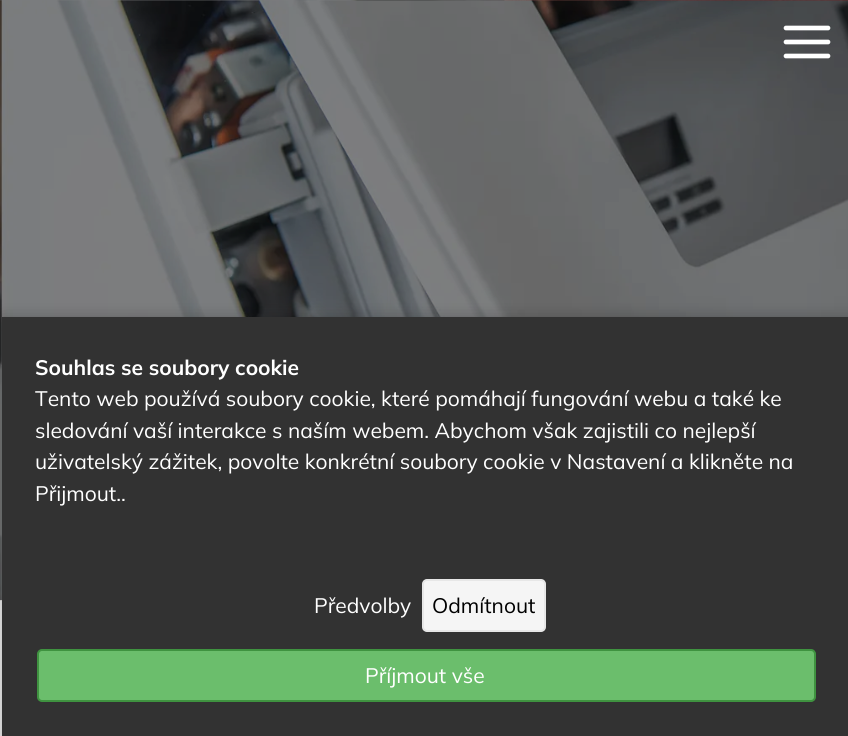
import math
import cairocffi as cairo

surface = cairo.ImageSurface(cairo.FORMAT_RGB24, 848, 736)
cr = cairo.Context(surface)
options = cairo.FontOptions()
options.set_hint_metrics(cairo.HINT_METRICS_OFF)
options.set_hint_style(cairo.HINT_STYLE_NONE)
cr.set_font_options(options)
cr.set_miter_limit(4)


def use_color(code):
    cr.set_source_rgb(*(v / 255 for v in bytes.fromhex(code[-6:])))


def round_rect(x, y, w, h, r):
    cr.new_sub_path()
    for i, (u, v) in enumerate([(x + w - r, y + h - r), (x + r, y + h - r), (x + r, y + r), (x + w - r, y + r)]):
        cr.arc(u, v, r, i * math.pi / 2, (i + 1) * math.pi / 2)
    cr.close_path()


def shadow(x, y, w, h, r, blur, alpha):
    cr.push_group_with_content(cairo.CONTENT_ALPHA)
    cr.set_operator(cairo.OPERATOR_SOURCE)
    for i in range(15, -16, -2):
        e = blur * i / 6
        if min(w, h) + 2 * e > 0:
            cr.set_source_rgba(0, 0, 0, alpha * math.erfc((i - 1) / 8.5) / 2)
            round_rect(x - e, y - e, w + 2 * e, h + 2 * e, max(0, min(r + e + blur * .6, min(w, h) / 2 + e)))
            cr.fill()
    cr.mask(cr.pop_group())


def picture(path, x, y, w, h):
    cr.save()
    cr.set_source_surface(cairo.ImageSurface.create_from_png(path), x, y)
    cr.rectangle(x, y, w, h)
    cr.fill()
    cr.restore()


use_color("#f4f4f4")
cr.paint()
picture("img1.png", 0, 0, 848, 601)
cr.new_path()
cr.move_to(786, 42)
cr.line_to(828, 42)
cr.move_to(786, 28)
cr.line_to(828, 28)
cr.move_to(786, 56)
cr.line_to(828, 56)
use_color("#ffffff")
cr.set_line_width(4.7)
cr.set_line_cap(cairo.LINE_CAP_ROUND)
cr.set_line_join(cairo.LINE_JOIN_ROUND)
cr.stroke()
cr.save()
cr.set_fill_rule(cairo.FILL_RULE_EVEN_ODD)
cr.new_path()
cr.move_to(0, 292)
cr.line_to(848, 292)
cr.line_to(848, 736)
cr.line_to(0, 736)
cr.close_path()
cr.move_to(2, 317)
cr.line_to(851, 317)
cr.line_to(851, 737)
cr.line_to(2, 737)
cr.close_path()
cr.clip()
use_color("#000000")
shadow(2, 320, 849, 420, 0, 9, 0.3)
cr.restore()
use_color("#323232")
cr.rectangle(2, 317, 846, 419)
cr.fill()
cr.select_font_face("Mulish", cairo.FONT_SLANT_NORMAL, cairo.FONT_WEIGHT_BOLD)
cr.set_font_size(21)
use_color("#ffffff")
cr.move_to(35, 375)
cr.show_text("Souhlas se soubory cookie")
cr.select_font_face("Mulish")
cr.move_to(35, 406)
cr.show_text("Tento web používá soubory cookie, které pomáhají fungování webu a také ke")
cr.move_to(35, 438)
cr.show_text("sledování vaší interakce s naším webem. Abychom však zajistili co nejlepší")
cr.move_to(35, 469)
cr.show_text("uživatelský zážitek, povolte konkrétní soubory cookie v Nastavení a klikněte na")
cr.move_to(35, 501)
cr.show_text("Přijmout..")
cr.move_to(314, 613)
cr.show_text("Předvolby")
use_color("#f5f5f5")
round_rect(423, 580, 122, 51, 4)
cr.fill_preserve()
use_color("#e7e7e7")
cr.set_line_width(2)
cr.set_line_cap(cairo.LINE_CAP_BUTT)
cr.set_line_join(cairo.LINE_JOIN_MITER)
cr.stroke()
use_color("#000000")
cr.move_to(432, 613)
cr.show_text("Odmítnout")
use_color("#6bbe6c")
round_rect(38, 650, 777, 51, 4)
cr.fill_preserve()
use_color("#3f9340")
cr.stroke()
use_color("#ffffff")
cr.move_to(365, 683)
cr.show_text("Příjmout vše")
surface.write_to_png("result.png")
